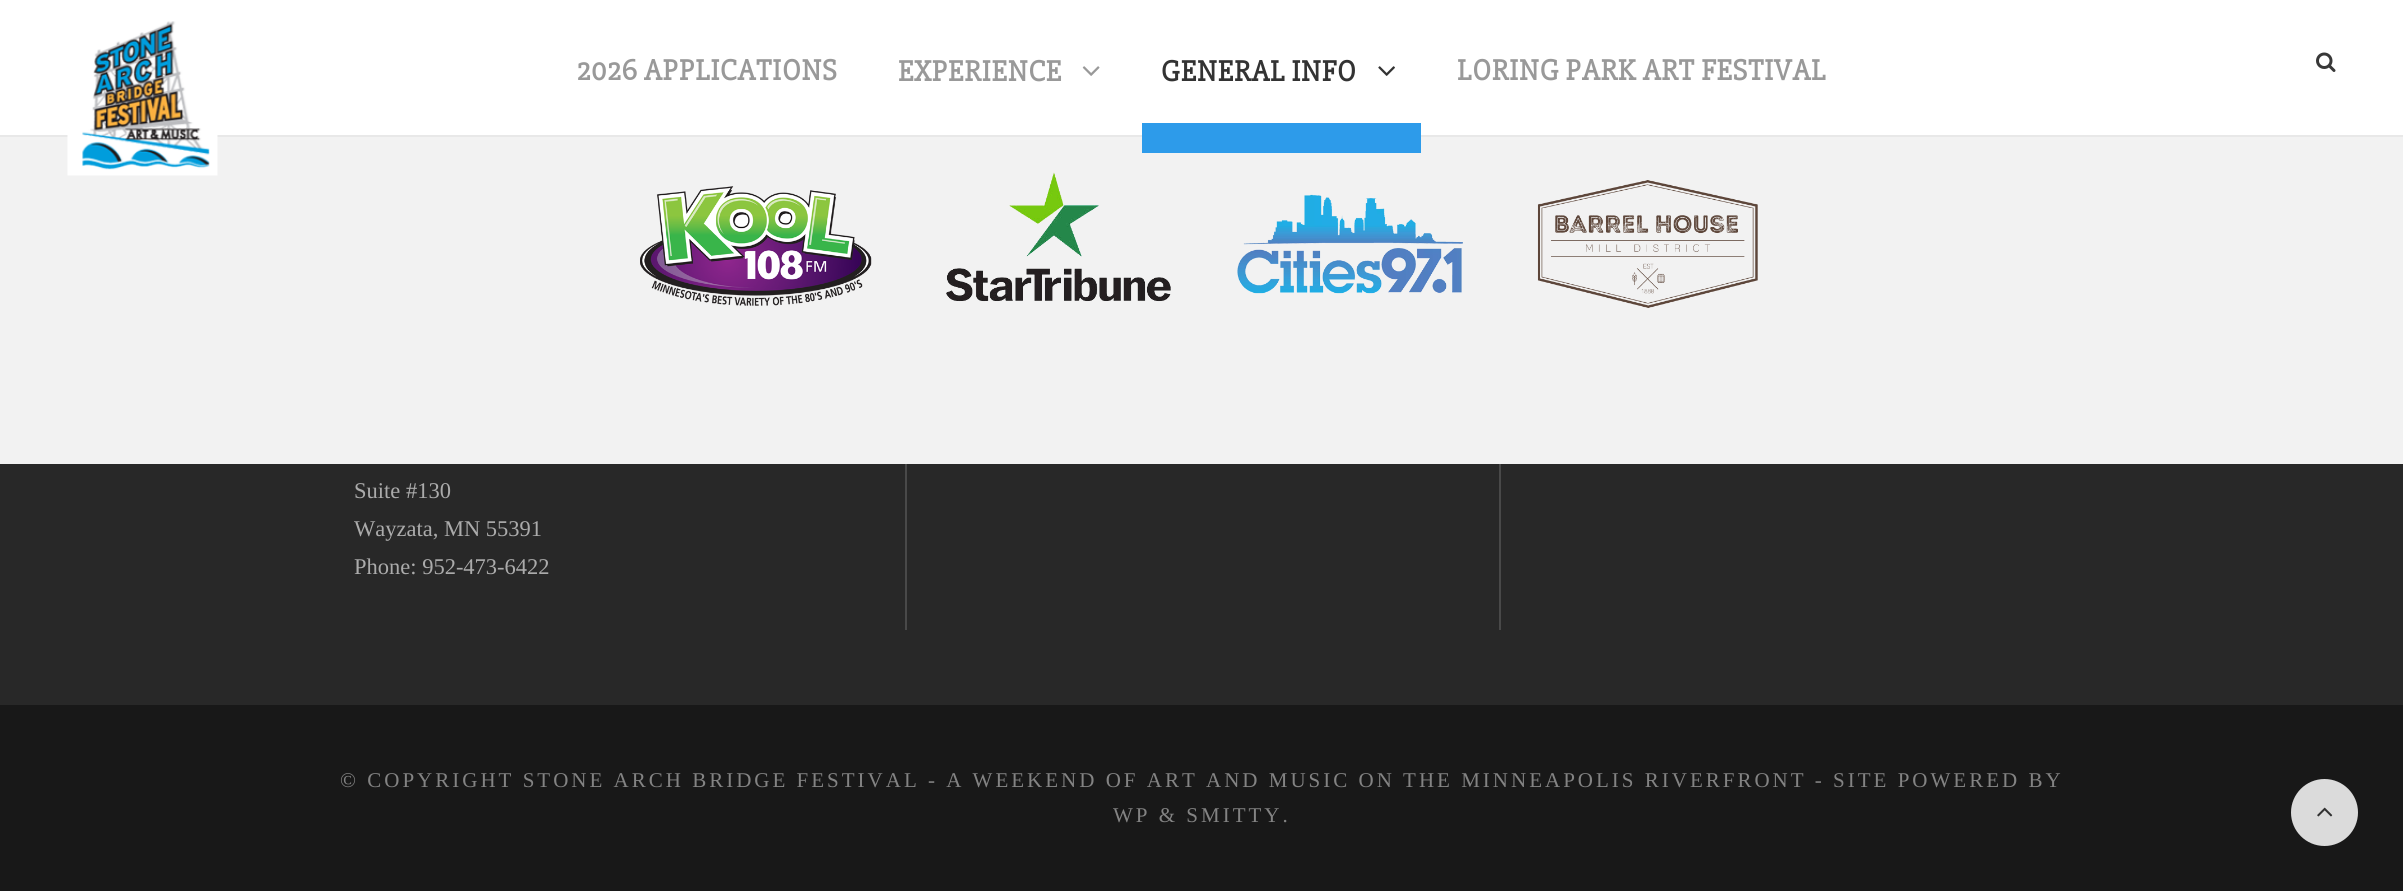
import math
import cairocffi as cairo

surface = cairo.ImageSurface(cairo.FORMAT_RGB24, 2403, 891)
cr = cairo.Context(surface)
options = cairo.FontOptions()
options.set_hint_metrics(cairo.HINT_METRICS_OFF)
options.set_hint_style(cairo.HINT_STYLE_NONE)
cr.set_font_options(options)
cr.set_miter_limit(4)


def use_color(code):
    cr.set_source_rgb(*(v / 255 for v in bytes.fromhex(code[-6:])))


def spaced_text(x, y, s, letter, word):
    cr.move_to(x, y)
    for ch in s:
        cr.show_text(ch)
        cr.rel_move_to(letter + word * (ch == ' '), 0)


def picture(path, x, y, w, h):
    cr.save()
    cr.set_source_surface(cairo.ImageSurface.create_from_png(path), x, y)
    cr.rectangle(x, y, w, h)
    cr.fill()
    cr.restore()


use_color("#282828")
cr.paint()
use_color("#e8e8e8")
cr.rectangle(0, 135, 2403, 2)
cr.fill()
use_color("#ffffff")
cr.rectangle(0, 0, 2403, 135)
cr.fill()
use_color("#f2f2f2")
cr.rectangle(0, 137, 2403, 327)
cr.fill()
picture("img1.png", 67, 21, 151, 155)
cr.select_font_face("Slabo 27px", cairo.FONT_SLANT_NORMAL, cairo.FONT_WEIGHT_BOLD)
cr.set_font_size(30)
use_color("#999999")
spaced_text(577, 80, "2026 APPLICATIONS", 0.75, 0)
spaced_text(898, 81, "EXPERIENCE", 0.75, 0)
picture("img2.png", 1082, 66, 18, 10)
use_color("#333333")
spaced_text(1161, 81, "GENERAL INFO", 0.75, 0)
picture("img3.png", 1378, 66, 17, 10)
use_color("#999999")
spaced_text(1457, 80, "LORING PARK ART FESTIVAL", 0.75, 0)
use_color("#2d9bea")
cr.rectangle(1142, 123, 279, 30)
cr.fill()
picture("img4.png", 2316, 52, 20, 20)
picture("img5.png", 640, 186, 232, 120)
picture("img6.png", 946, 172, 225, 130)
picture("img7.png", 1237, 194, 226, 100)
picture("img8.png", 1537, 180, 221, 128)
cr.select_font_face("Liberation Serif")
cr.set_font_size(22.5)
use_color("#ababab")
cr.move_to(354, 498)
cr.show_text("Suite #130")
cr.move_to(354, 536)
cr.show_text("Wayzata, MN 55391")
cr.move_to(354, 574)
cr.show_text("Phone: 952-473-6422")
use_color("#494949")
cr.rectangle(905, 464, 2, 166)
cr.fill()
cr.rectangle(1499, 464, 2, 166)
cr.fill()
use_color("#181818")
cr.rectangle(0, 705, 2403, 186)
cr.fill()
cr.set_font_size(21)
use_color("#838383")
spaced_text(340, 787, "© COPYRIGHT STONE ARCH BRIDGE FESTIVAL - A WEEKEND OF ART AND MUSIC ON THE MINNEAPOLIS RIVERFRONT - SITE POWERED BY", 3, 0)
spaced_text(1113, 822, "WP & SMITTY.", 3, 0)
use_color("#dbdbdb")
cr.new_path()
cr.arc(2324.5, 812.5, 33.5, 0, 2 * math.pi)
cr.fill()
picture("img9.png", 2317, 807, 16, 10)
surface.write_to_png("result.png")
